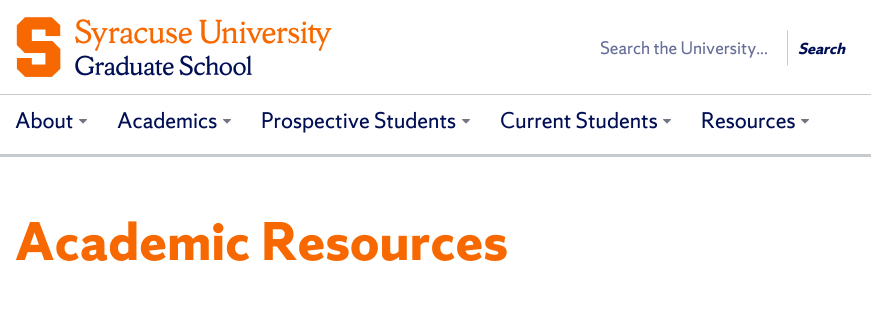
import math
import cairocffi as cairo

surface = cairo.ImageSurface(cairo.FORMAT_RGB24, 871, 316)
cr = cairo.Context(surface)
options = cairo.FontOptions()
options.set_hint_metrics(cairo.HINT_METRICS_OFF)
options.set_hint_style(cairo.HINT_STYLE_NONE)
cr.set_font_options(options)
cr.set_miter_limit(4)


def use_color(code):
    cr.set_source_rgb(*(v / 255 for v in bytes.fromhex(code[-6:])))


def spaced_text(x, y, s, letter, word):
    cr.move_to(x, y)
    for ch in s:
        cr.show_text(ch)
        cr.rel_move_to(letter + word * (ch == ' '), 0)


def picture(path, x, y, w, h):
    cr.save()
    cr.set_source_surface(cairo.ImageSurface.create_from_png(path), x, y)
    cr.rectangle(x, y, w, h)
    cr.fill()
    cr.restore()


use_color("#ffffff")
cr.paint()
use_color("#c6cacd")
cr.rectangle(0, 94, 871, 1)
cr.fill()
picture("img1.png", 16, 17, 316, 60)
cr.select_font_face("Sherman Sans")
cr.set_font_size(16)
use_color("#666e98")
cr.move_to(600, 54)
cr.show_text("Search the University...")
use_color("#c6cacd")
cr.new_path()
cr.move_to(787, 66)
cr.line_to(787, 30)
cr.line_to(788, 31)
cr.line_to(788, 65)
cr.close_path()
cr.fill()
cr.select_font_face("Sherman Sans", cairo.FONT_SLANT_ITALIC, cairo.FONT_WEIGHT_BOLD)
cr.set_font_size(14)
use_color("#000e54")
cr.move_to(798, 54)
cr.show_text("Search")
cr.select_font_face("Sherman Sans")
cr.set_font_size(20)
cr.move_to(15, 128)
cr.show_text("About")
picture("img2.png", 79, 119, 8, 5)
cr.move_to(117, 128)
cr.show_text("Academics")
picture("img2.png", 223, 119, 8, 5)
cr.move_to(261, 128)
cr.show_text("Prospective Students")
picture("img2.png", 462, 119, 8, 5)
cr.move_to(500, 128)
cr.show_text("Current Students")
picture("img2.png", 663, 119, 8, 5)
cr.move_to(701, 128)
cr.show_text("Resources")
picture("img2.png", 801, 119, 8, 5)
use_color("#c6cacd")
cr.rectangle(0, 154, 871, 3)
cr.fill()
cr.select_font_face("Sherman Sans", cairo.FONT_SLANT_NORMAL, cairo.FONT_WEIGHT_BOLD)
cr.set_font_size(48)
use_color("#f76900")
spaced_text(15, 260, "Academic Resources", 0.5, 0)
surface.write_to_png("result.png")
